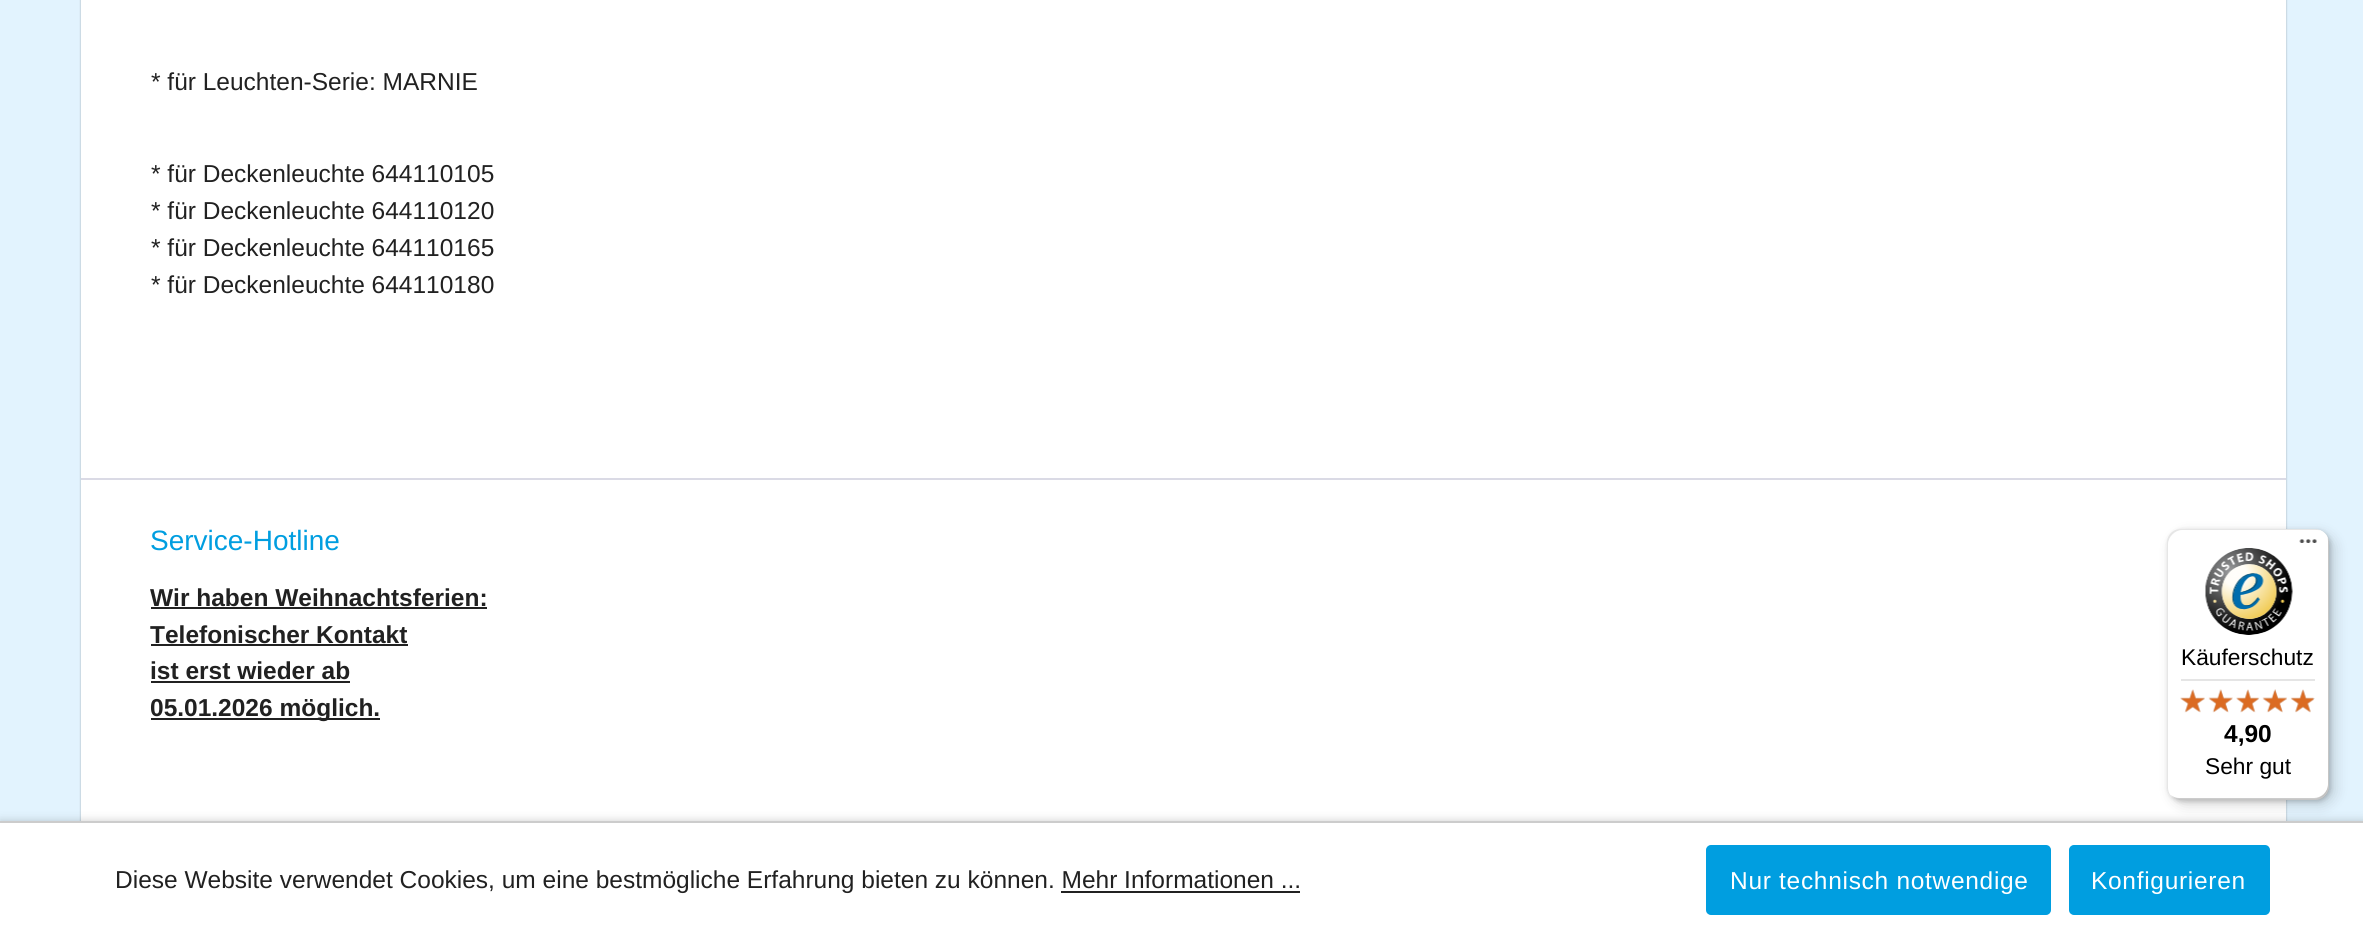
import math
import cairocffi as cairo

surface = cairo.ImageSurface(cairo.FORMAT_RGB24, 2363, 938)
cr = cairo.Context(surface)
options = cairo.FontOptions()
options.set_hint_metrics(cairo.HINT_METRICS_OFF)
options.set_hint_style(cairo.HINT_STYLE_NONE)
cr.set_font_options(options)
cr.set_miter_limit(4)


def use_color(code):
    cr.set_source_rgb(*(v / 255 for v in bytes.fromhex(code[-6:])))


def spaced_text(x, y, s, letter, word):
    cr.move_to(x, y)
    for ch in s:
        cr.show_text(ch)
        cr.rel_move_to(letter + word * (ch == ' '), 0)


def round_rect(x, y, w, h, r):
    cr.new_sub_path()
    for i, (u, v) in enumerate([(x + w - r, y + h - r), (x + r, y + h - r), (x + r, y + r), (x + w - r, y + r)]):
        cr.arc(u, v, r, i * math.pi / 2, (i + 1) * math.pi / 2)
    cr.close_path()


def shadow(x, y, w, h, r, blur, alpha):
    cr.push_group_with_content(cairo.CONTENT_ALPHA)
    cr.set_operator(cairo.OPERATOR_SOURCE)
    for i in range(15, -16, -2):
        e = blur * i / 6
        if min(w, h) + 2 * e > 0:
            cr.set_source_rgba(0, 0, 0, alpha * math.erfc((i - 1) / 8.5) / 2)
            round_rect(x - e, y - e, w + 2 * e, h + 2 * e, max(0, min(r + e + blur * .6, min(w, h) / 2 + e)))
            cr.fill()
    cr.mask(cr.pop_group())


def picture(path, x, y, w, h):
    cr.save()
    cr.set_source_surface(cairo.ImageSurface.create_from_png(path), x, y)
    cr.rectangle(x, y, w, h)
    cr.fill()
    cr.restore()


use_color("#e2f3fe")
cr.paint()
use_color("#000000")
shadow(81, -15, 2205, 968, 12, 1, 0.3)
use_color("#ffffff")
cr.rectangle(81, 0, 2205, 821)
cr.fill()
cr.select_font_face("Liberation Sans")
cr.set_font_size(24.5)
use_color("#212121")
cr.move_to(151, 90)
cr.show_text("* für Leuchten-Serie: MARNIE")
cr.move_to(151, 182)
cr.show_text("* für Deckenleuchte 644110105")
cr.move_to(151, 219)
cr.show_text("* für Deckenleuchte 644110120")
cr.move_to(151, 256)
cr.show_text("* für Deckenleuchte 644110165")
cr.move_to(151, 293)
cr.show_text("* für Deckenleuchte 644110180")
use_color("#dadae5")
cr.rectangle(81, 478, 2205, 2)
cr.fill()
cr.set_font_size(28)
use_color("#009ee0")
cr.move_to(150, 550)
cr.show_text("Service-Hotline")
cr.select_font_face("Liberation Sans", cairo.FONT_SLANT_NORMAL, cairo.FONT_WEIGHT_BOLD)
cr.set_font_size(24.5)
use_color("#212121")
cr.move_to(150, 606)
cr.show_text("Wir haben Weihnachtsferien:")
cr.rectangle(151, 607, 336, 2)
cr.fill()
cr.move_to(150, 643)
cr.show_text("Telefonischer Kontakt")
cr.rectangle(151, 644, 257, 2)
cr.fill()
cr.move_to(150, 679)
cr.show_text("ist erst wieder ab")
cr.rectangle(151, 681, 199, 2)
cr.fill()
cr.rectangle(151, 718, 229, 2)
cr.fill()
cr.move_to(150, 716)
cr.show_text("05.01.2026 möglich.")
use_color("#000000")
shadow(0, 821, 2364, 117, 0, 4.5, 0.2)
use_color("#ffffff")
cr.rectangle(0, 823, 2363, 115)
cr.fill()
use_color("#cccccc")
cr.rectangle(0, 821, 2363, 2)
cr.fill()
use_color("#000000")
shadow(2172, 534, 163, 271, 14, 7, 0.15)
shadow(2168, 530, 163, 272, 14, 2, 0.15)
use_color("#ffffff")
round_rect(2167, 529, 162, 271, 14)
cr.fill()
cr.set_source_rgba(0, 0, 0, 0.1)
cr.new_path()
cr.move_to(2182, 530)
cr.line_to(2317, 530)
cr.curve_to(2319, 530, 2321, 530, 2322, 531)
cr.curve_to(2320, 530, 2318, 529, 2315, 529)
cr.line_to(2181, 529)
cr.curve_to(2173, 529, 2167, 535, 2167, 543)
cr.line_to(2167, 786)
cr.curve_to(2167, 789, 2168, 792, 2170, 795)
cr.curve_to(2169, 793, 2168, 790, 2168, 788)
cr.line_to(2168, 544)
cr.curve_to(2168, 537, 2175, 530, 2182, 530)
cr.close_path()
cr.fill()
cr.set_source_rgba(0, 0, 0, 0.2)
cr.new_path()
cr.move_to(2171, 795)
cr.curve_to(2173, 798, 2177, 800, 2181, 800)
cr.line_to(2315, 800)
cr.curve_to(2323, 800, 2329, 794, 2329, 786)
cr.line_to(2329, 543)
cr.curve_to(2329, 540, 2328, 538, 2327, 536)
cr.curve_to(2328, 537, 2328, 539, 2328, 541)
cr.line_to(2328, 784)
cr.curve_to(2328, 792, 2321, 798, 2314, 798)
cr.line_to(2179, 798)
cr.curve_to(2176, 798, 2173, 797, 2171, 795)
cr.close_path()
cr.fill()
cr.set_source_rgba(0.196, 0.196, 0.196, 0.2)
cr.new_path()
cr.move_to(2172, 797)
cr.curve_to(2175, 799, 2178, 800, 2181, 800)
cr.line_to(2315, 800)
cr.curve_to(2323, 800, 2329, 794, 2329, 786)
cr.line_to(2329, 543)
cr.curve_to(2329, 540, 2328, 537, 2327, 535)
cr.curve_to(2328, 537, 2328, 539, 2328, 541)
cr.line_to(2328, 785)
cr.curve_to(2328, 792, 2322, 799, 2314, 799)
cr.line_to(2179, 799)
cr.curve_to(2177, 799, 2174, 798, 2172, 797)
cr.close_path()
cr.fill()
cr.set_source_rgba(1, 1, 1, 0.3)
cr.new_path()
cr.move_to(2172, 796)
cr.curve_to(2174, 799, 2177, 800, 2181, 800)
cr.line_to(2315, 800)
cr.curve_to(2323, 800, 2329, 794, 2329, 786)
cr.line_to(2329, 543)
cr.curve_to(2329, 539, 2328, 536, 2325, 534)
cr.curve_to(2327, 536, 2328, 539, 2328, 542)
cr.line_to(2328, 785)
cr.curve_to(2328, 793, 2322, 799, 2314, 799)
cr.line_to(2180, 799)
cr.curve_to(2177, 799, 2174, 798, 2172, 796)
cr.close_path()
cr.fill()
picture("img1.png", 2299, 539, 18, 4)
picture("img2.png", 2205, 548, 88, 87)
cr.select_font_face("Liberation Sans")
cr.set_font_size(22.75)
use_color("#000000")
cr.move_to(2181, 665)
cr.show_text("Käuferschutz")
use_color("#e5e5e5")
cr.rectangle(2181, 679, 134, 2)
cr.fill()
picture("img3.png", 2180, 690, 25, 22)
picture("img4.png", 2209, 689, 24, 23)
picture("img5.png", 2236, 690, 23, 22)
picture("img6.png", 2263, 689, 24, 23)
picture("img7.png", 2291, 690, 24, 22)
picture("img8.png", 2180, 689, 25, 24)
picture("img9.png", 2208, 689, 25, 24)
picture("img10.png", 2236, 689, 24, 24)
picture("img11.png", 2262, 689, 25, 24)
picture("img12.png", 2290, 689, 24, 24)
cr.select_font_face("Liberation Sans", cairo.FONT_SLANT_NORMAL, cairo.FONT_WEIGHT_BOLD)
cr.set_font_size(24.5)
use_color("#000000")
cr.move_to(2224, 742)
cr.show_text("4,90")
cr.select_font_face("Liberation Sans")
cr.set_font_size(22.75)
cr.move_to(2205, 774)
cr.show_text("Sehr gut")
cr.set_font_size(24.5)
use_color("#212121")
cr.move_to(115, 888)
cr.show_text("Diese Website verwendet Cookies, um eine bestmögliche Erfahrung bieten zu können. Mehr Informationen ...")
cr.rectangle(1061, 891, 239, 2)
cr.fill()
use_color("#009ee0")
round_rect(1707, 846, 343, 68, 4)
cr.fill_preserve()
cr.stroke()
use_color("#ffffff")
spaced_text(1730, 889, "Nur technisch notwendige", 0.7, 0)
use_color("#009ee0")
round_rect(2070, 846, 199, 68, 4)
cr.fill_preserve()
cr.stroke()
use_color("#ffffff")
spaced_text(2091, 889, "Konfigurieren", 0.7, 0)
surface.write_to_png("result.png")
